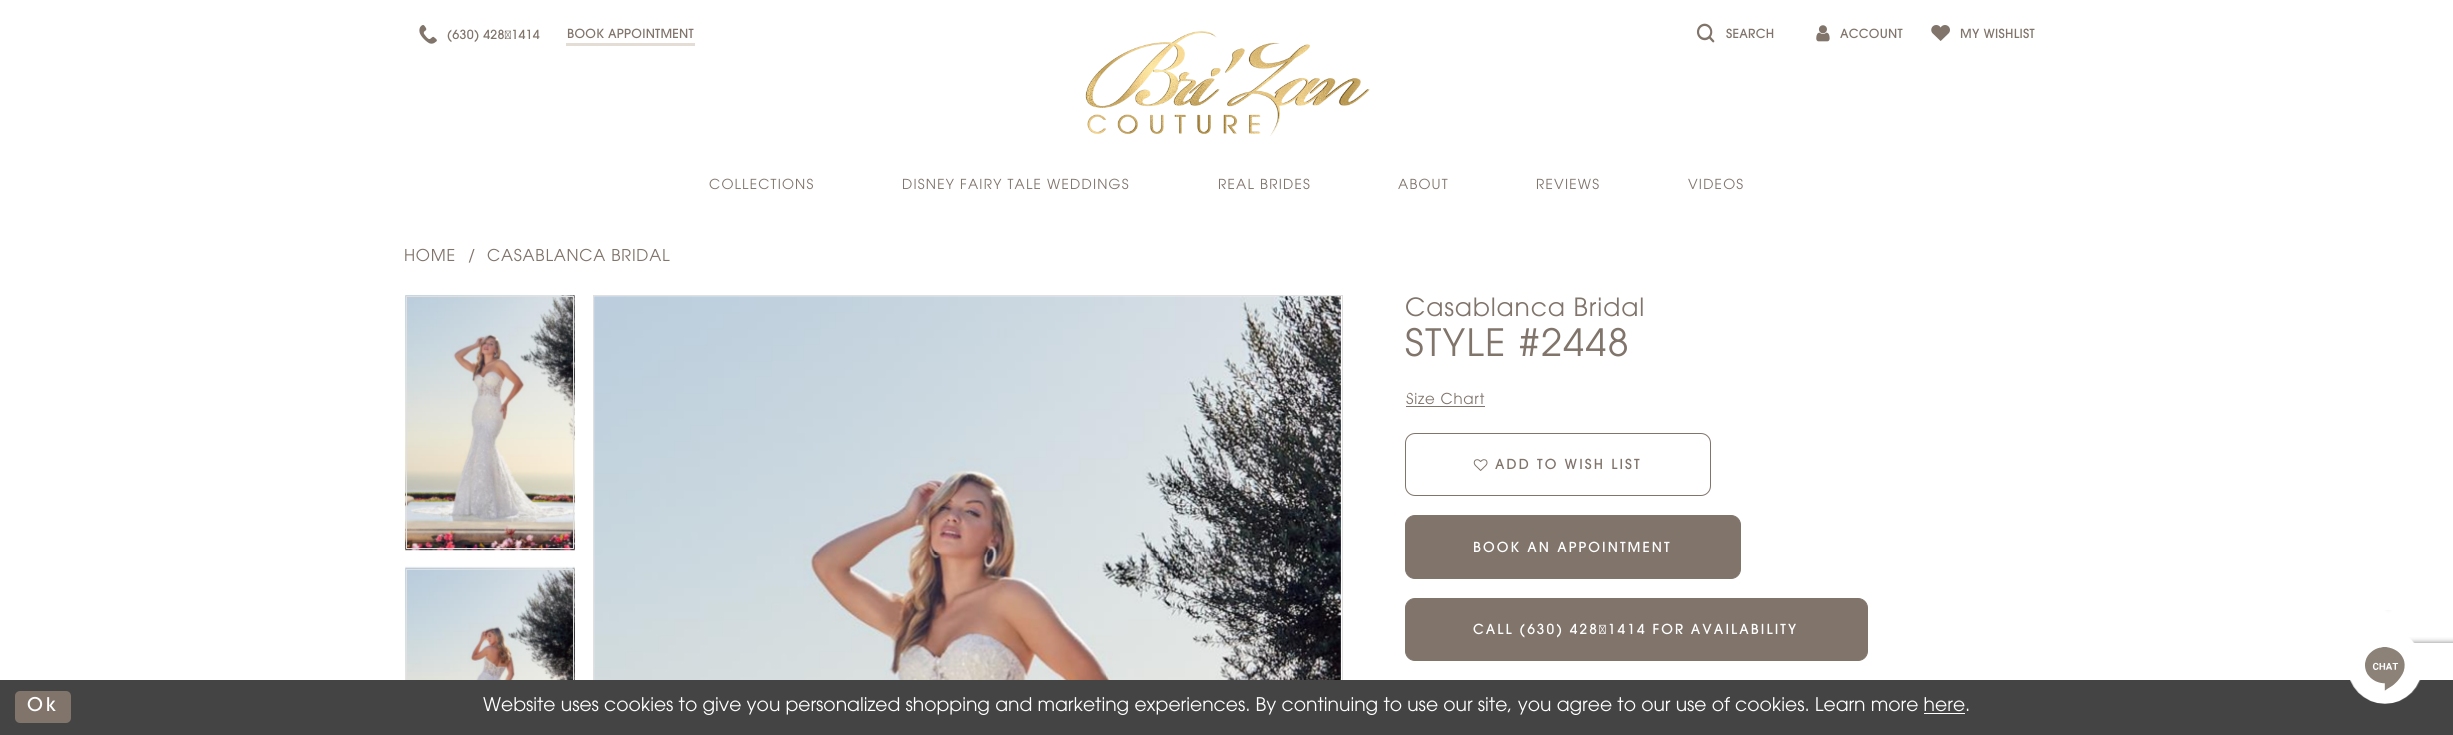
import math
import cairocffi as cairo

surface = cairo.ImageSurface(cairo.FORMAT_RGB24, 2453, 735)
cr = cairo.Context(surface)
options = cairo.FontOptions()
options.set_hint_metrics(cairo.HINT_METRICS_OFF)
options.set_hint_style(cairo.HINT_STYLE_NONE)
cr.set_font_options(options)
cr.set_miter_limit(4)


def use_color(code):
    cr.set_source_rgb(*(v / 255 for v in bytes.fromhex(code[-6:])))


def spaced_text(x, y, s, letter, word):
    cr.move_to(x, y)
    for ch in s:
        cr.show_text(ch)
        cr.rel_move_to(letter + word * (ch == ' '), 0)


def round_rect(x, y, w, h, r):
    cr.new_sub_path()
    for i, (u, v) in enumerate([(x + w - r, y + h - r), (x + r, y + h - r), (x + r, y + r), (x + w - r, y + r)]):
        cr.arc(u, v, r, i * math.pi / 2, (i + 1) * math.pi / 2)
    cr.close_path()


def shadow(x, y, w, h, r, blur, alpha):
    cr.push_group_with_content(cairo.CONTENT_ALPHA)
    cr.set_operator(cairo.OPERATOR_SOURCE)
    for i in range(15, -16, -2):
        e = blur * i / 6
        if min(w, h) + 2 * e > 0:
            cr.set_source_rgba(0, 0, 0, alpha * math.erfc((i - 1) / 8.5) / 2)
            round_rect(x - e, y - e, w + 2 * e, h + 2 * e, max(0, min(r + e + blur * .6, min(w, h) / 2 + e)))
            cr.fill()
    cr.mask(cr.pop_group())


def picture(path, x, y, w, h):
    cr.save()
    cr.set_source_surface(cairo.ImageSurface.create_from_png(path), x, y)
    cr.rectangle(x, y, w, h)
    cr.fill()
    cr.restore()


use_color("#ffffff")
cr.paint()
picture("img1.png", 419, 25, 18, 19)
cr.select_font_face("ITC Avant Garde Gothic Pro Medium")
cr.set_font_size(12.5)
use_color("#80746b")
spaced_text(447, 39, "(630) 428‑1414", 0.25, 0)
spaced_text(567, 38, "BOOK APPOINTMENT", 0.25, 0)
use_color("#e4ddd5")
cr.rectangle(566, 43, 129, 3)
cr.fill()
picture("img2.png", 1085, 31, 285, 105)
picture("img3.png", 1696, 23, 19, 20)
use_color("#80746b")
spaced_text(1726, 38, "SEARCH", 0.25, 0)
picture("img4.png", 1816, 25, 14, 17)
spaced_text(1840, 38, "ACCOUNT", 0.25, 0)
picture("img5.png", 1931, 25, 19, 16)
spaced_text(1960, 38, "MY WISHLIST", 0.25, 0)
cr.select_font_face("ITC Avant Garde Gothic Pro Light")
cr.set_font_size(13.75)
spaced_text(709, 189, "COLLECTIONS", 1.2, 0)
spaced_text(902, 189, "DISNEY FAIRY TALE WEDDINGS", 1.2, 0)
spaced_text(1218, 189, "REAL BRIDES", 1.2, 0)
spaced_text(1398, 189, "ABOUT", 1.2, 0)
spaced_text(1536, 189, "REVIEWS", 1.2, 0)
spaced_text(1688, 189, "VIDEOS", 1.2, 0)
cr.set_font_size(16.25)
spaced_text(404, 261, "HOME", 0.75, 0)
spaced_text(468, 261, "/", 0.75, 0)
spaced_text(487, 261, "CASABLANCA BRIDAL", 0.75, 0)
picture("img6.png", 405, 295, 170, 256)
cr.rectangle(406.5, 296.5, 167, 252)
use_color("#e0e0e0")
cr.set_line_width(1)
cr.stroke()
picture("img7.png", 405, 566, 170, 114)
cr.rectangle(406.5, 569.5, 167, 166)
cr.stroke()
cr.rectangle(593.5, 295.5, 749, 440)
cr.stroke()
picture("img8.png", 594, 296, 747, 384)
cr.set_font_size(25)
use_color("#80746b")
spaced_text(1405, 316, "Casablanca Bridal", 0.9, 0)
cr.set_font_size(37.5)
spaced_text(1405, 356, "STYLE #2448", 1.5, 0)
cr.save()
round_rect(1406, 390, 79, 23, 10)
cr.clip()
cr.set_font_size(15)
spaced_text(1406, 404, "Size Chart", 0.75, 0)
cr.restore()
cr.rectangle(1406, 406, 79, 1)
cr.fill()
round_rect(1405.5, 433.5, 305, 62, 9.5)
cr.stroke()
picture("img9.png", 1473, 459, 15, 12)
cr.select_font_face("ITC Avant Garde Gothic Pro Medium")
cr.set_font_size(13.75)
spaced_text(1495, 469, "ADD TO WISH LIST", 2.1, 0)
round_rect(1405.5, 515.5, 335, 63, 9.5)
cr.fill_preserve()
cr.stroke()
use_color("#ffffff")
spaced_text(1473, 552, "BOOK AN APPOINTMENT", 2.1, 0)
use_color("#80746b")
round_rect(1405.5, 598.5, 462, 62, 9.5)
cr.fill_preserve()
cr.stroke()
use_color("#ffffff")
spaced_text(1473, 634, "CALL (630) 428‑1414 FOR AVAILABILITY", 2.1, -0.5)
cr.save()
cr.rectangle(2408, 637, 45, 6)
cr.clip()
use_color("#808080")
shadow(2366, 643, 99, 75, 2.5, 3, 1)
cr.restore()
use_color("#444444")
cr.rectangle(0, 680, 2453, 55)
cr.fill()
picture("img10.png", 2350, 610, 71, 94)
use_color("#80746b")
round_rect(15, 691, 56, 32, 5)
cr.fill()
cr.set_font_size(18.75)
use_color("#ffffff")
spaced_text(27, 711, "Ok", 3, 0)
cr.select_font_face("ITC Avant Garde Gothic Pro Light")
cr.move_to(483, 711)
cr.show_text("Website uses cookies to give you personalized shopping and marketing experiences. By continuing to use our site, you agree to our use of cookies. Learn more here.")
cr.rectangle(1924, 713, 41, 1)
cr.fill()
surface.write_to_png("result.png")
